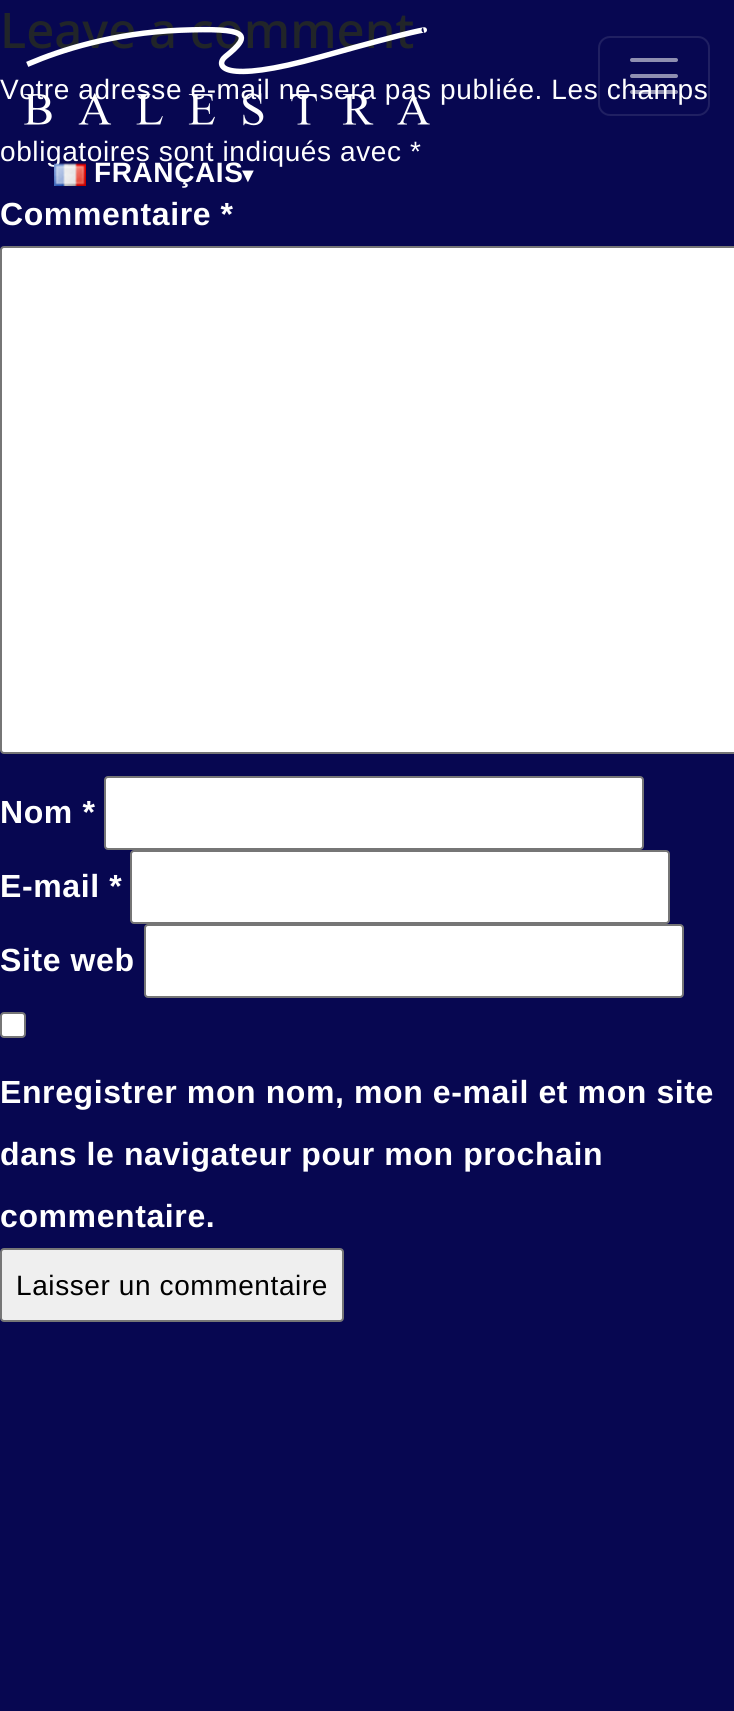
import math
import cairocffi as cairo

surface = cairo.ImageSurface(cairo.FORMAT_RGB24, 734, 1711)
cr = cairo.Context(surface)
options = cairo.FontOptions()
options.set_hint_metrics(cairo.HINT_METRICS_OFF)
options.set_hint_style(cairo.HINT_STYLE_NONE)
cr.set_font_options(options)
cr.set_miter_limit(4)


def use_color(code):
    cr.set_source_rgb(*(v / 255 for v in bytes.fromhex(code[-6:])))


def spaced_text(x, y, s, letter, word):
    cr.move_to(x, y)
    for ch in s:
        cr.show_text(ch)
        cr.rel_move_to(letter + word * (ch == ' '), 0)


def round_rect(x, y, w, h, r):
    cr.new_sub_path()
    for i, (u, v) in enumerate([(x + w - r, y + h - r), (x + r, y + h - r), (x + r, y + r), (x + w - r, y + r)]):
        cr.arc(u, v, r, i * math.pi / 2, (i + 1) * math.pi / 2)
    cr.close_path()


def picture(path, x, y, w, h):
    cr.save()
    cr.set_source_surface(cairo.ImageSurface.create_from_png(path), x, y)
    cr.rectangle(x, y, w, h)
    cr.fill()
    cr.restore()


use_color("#070751")
cr.paint()
cr.select_font_face("Noto Sans Medium")
cr.set_font_size(49)
use_color("#212529")
cr.move_to(0, 48)
cr.show_text("Leave a comment")
cr.select_font_face("Liberation Sans")
cr.set_font_size(28)
use_color("#ffffff")
spaced_text(0, 99, "Votre adresse e-mail ne sera pas publiée. Les champs", 0.6, 0)
spaced_text(0, 161, "obligatoires sont indiqués avec *", 0.6, 0)
cr.select_font_face("Liberation Sans", cairo.FONT_SLANT_NORMAL, cairo.FONT_WEIGHT_BOLD)
cr.set_font_size(32)
spaced_text(0, 225, "Commentaire *", 0.6, 0)
round_rect(1, 247, 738, 506, 3)
cr.fill_preserve()
use_color("#767676")
cr.stroke()
use_color("#ffffff")
spaced_text(0, 823, "Nom *", 0.6, 0)
round_rect(105, 777, 538, 72, 3)
cr.fill_preserve()
use_color("#767676")
cr.stroke()
use_color("#ffffff")
spaced_text(0, 897, "E-mail *", 0.6, 0)
round_rect(131, 851, 538, 72, 3)
cr.fill_preserve()
use_color("#767676")
cr.stroke()
use_color("#ffffff")
spaced_text(0, 971, "Site web", 0.6, 0)
round_rect(145, 925, 538, 72, 3)
cr.fill_preserve()
use_color("#767676")
cr.stroke()
use_color("#ffffff")
round_rect(1, 1013, 24, 24, 3)
cr.fill_preserve()
use_color("#767676")
cr.stroke()
use_color("#ffffff")
spaced_text(0, 1103, "Enregistrer mon nom, mon e-mail et mon site", 0.6, 0)
spaced_text(0, 1165, "dans le navigateur pour mon prochain", 0.6, 0)
spaced_text(0, 1227, "commentaire.", 0.6, 0)
use_color("#efefef")
round_rect(1, 1249, 342, 72, 3)
cr.fill_preserve()
use_color("#767676")
cr.stroke()
cr.select_font_face("Liberation Sans")
cr.set_font_size(28)
use_color("#000000")
spaced_text(16, 1295, "Laisser un commentaire", 0.6, 0)
picture("img1.png", 24, 26, 406, 100)
round_rect(599, 37, 110, 78, 11)
use_color("#202062")
cr.stroke()
cr.new_path()
cr.move_to(632, 60)
cr.line_to(676, 60)
cr.move_to(632, 76)
cr.line_to(676, 76)
cr.move_to(632, 92)
cr.line_to(676, 92)
cr.set_source_rgba(1, 1, 1, 0.55)
cr.set_line_width(4)
cr.set_line_cap(cairo.LINE_CAP_ROUND)
cr.stroke()
picture("img2.png", 54, 163, 32, 23)
cr.select_font_face("Liberation Sans", cairo.FONT_SLANT_NORMAL, cairo.FONT_WEIGHT_BOLD)
use_color("#ffffff")
spaced_text(94, 182, "FRANÇAIS", 0.6, 0)
cr.select_font_face("Liberation Sans")
cr.set_font_size(20)
cr.move_to(238, 182)
cr.show_text("▼")
surface.write_to_png("result.png")
